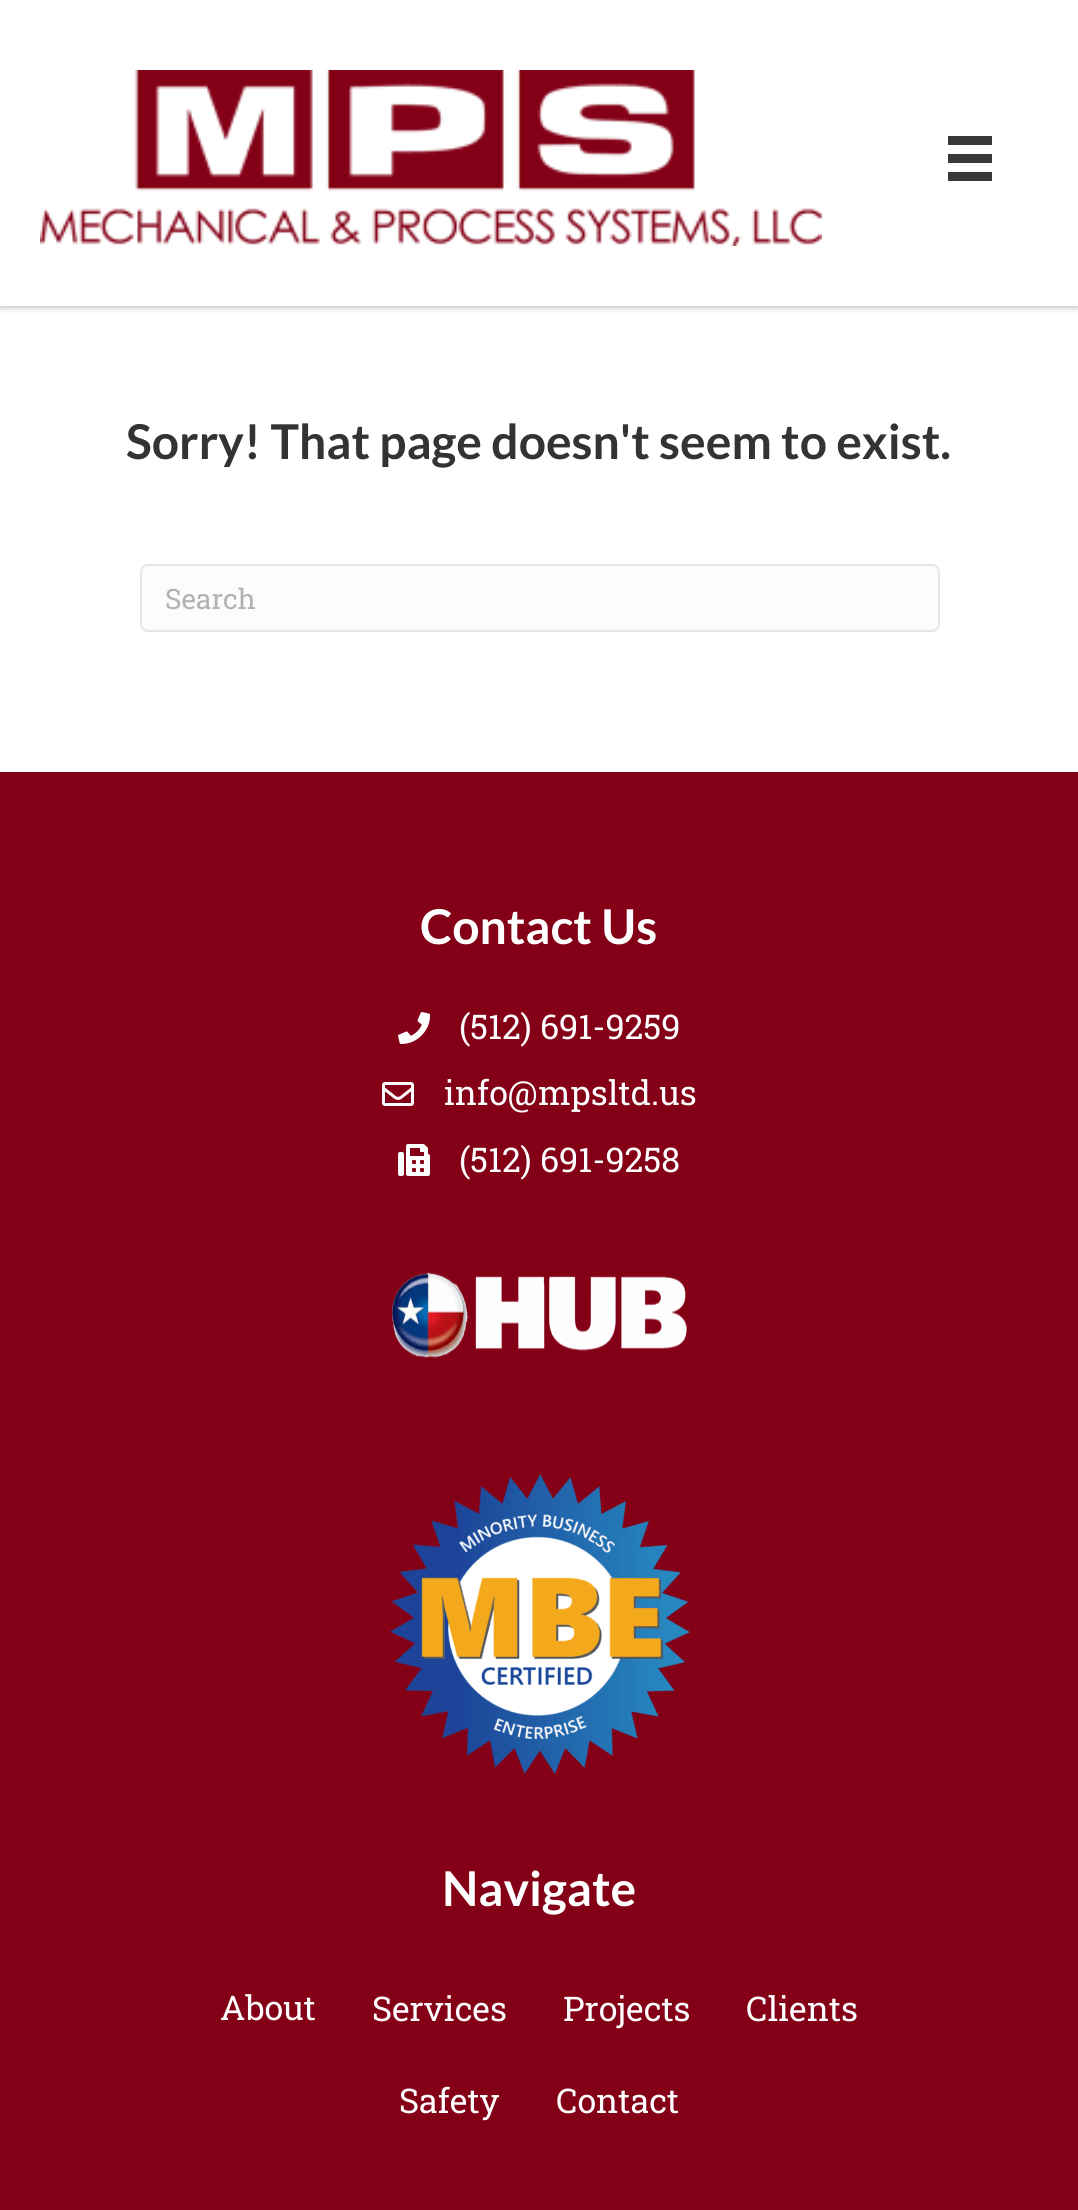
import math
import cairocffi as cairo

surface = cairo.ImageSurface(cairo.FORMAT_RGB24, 1078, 2210)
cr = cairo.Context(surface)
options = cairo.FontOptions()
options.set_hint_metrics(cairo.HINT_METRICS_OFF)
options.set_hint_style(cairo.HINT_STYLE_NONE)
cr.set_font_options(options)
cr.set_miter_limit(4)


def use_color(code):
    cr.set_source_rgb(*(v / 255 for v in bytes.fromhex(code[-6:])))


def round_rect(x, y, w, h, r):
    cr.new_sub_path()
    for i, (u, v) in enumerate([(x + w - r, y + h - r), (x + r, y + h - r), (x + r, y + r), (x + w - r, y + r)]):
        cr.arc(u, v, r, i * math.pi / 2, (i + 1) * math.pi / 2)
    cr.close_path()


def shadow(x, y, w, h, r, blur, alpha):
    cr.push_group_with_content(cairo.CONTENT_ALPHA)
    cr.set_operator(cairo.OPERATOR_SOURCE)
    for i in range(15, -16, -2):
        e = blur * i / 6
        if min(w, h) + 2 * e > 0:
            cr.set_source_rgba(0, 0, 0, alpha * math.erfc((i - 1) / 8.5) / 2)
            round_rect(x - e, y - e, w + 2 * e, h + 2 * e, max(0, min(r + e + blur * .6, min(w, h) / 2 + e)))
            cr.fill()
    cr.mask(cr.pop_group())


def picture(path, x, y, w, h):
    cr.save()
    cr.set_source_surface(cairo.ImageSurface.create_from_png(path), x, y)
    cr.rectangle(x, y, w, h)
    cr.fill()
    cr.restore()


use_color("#ffffff")
cr.paint()
cr.save()
cr.rectangle(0, 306, 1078, 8)
cr.clip()
use_color("#c1c1c1")
shadow(0, 2, 1078, 306, 0, 3, 1)
cr.restore()
picture("img1.png", 40, 70, 782, 176)
use_color("#383838")
cr.rectangle(948, 136, 44, 9)
cr.fill()
cr.rectangle(948, 154, 44, 9)
cr.fill()
cr.rectangle(948, 172, 44, 9)
cr.fill()
cr.select_font_face("Lato", cairo.FONT_SLANT_NORMAL, cairo.FONT_WEIGHT_BOLD)
cr.set_font_size(48)
use_color("#333333")
cr.move_to(126, 459)
cr.show_text("Sorry! That page doesn't seem to exist.")
use_color("#fcfcfc")
round_rect(141, 565, 798, 66, 7)
cr.fill_preserve()
use_color("#e6e6e6")
cr.stroke()
cr.select_font_face("Roboto Slab")
cr.set_font_size(28)
use_color("#b2b2b2")
cr.move_to(165, 609)
cr.show_text("Search")
use_color("#840017")
cr.rectangle(0, 772, 1078, 1438)
cr.fill()
cr.select_font_face("Lato", cairo.FONT_SLANT_NORMAL, cairo.FONT_WEIGHT_BOLD)
cr.set_font_size(48)
use_color("#ffffff")
cr.move_to(420, 944)
cr.show_text("Contact Us")
picture("img2.png", 398, 1012, 33, 32)
cr.select_font_face("Roboto Slab")
cr.set_font_size(34)
cr.move_to(459, 1039)
cr.show_text("(512) 691-9259")
picture("img3.png", 382, 1082, 32, 24)
cr.move_to(444, 1105)
cr.show_text("info@mpsltd.us")
picture("img4.png", 398, 1144, 32, 32)
cr.move_to(459, 1172)
cr.show_text("(512) 691-9258")
picture("img5.png", 392, 1272, 295, 86)
picture("img6.png", 390, 1474, 300, 300)
cr.select_font_face("Lato", cairo.FONT_SLANT_NORMAL, cairo.FONT_WEIGHT_BOLD)
cr.set_font_size(48)
cr.move_to(442, 1906)
cr.show_text("Navigate")
cr.select_font_face("Roboto Slab")
cr.set_font_size(34)
cr.move_to(220, 2020)
cr.show_text("About")
cr.move_to(372, 2021)
cr.show_text("Services")
cr.move_to(563, 2021)
cr.show_text("Projects")
cr.move_to(746, 2021)
cr.show_text("Clients")
cr.move_to(399, 2113)
cr.show_text("Safety")
cr.move_to(556, 2113)
cr.show_text("Contact")
surface.write_to_png("result.png")
